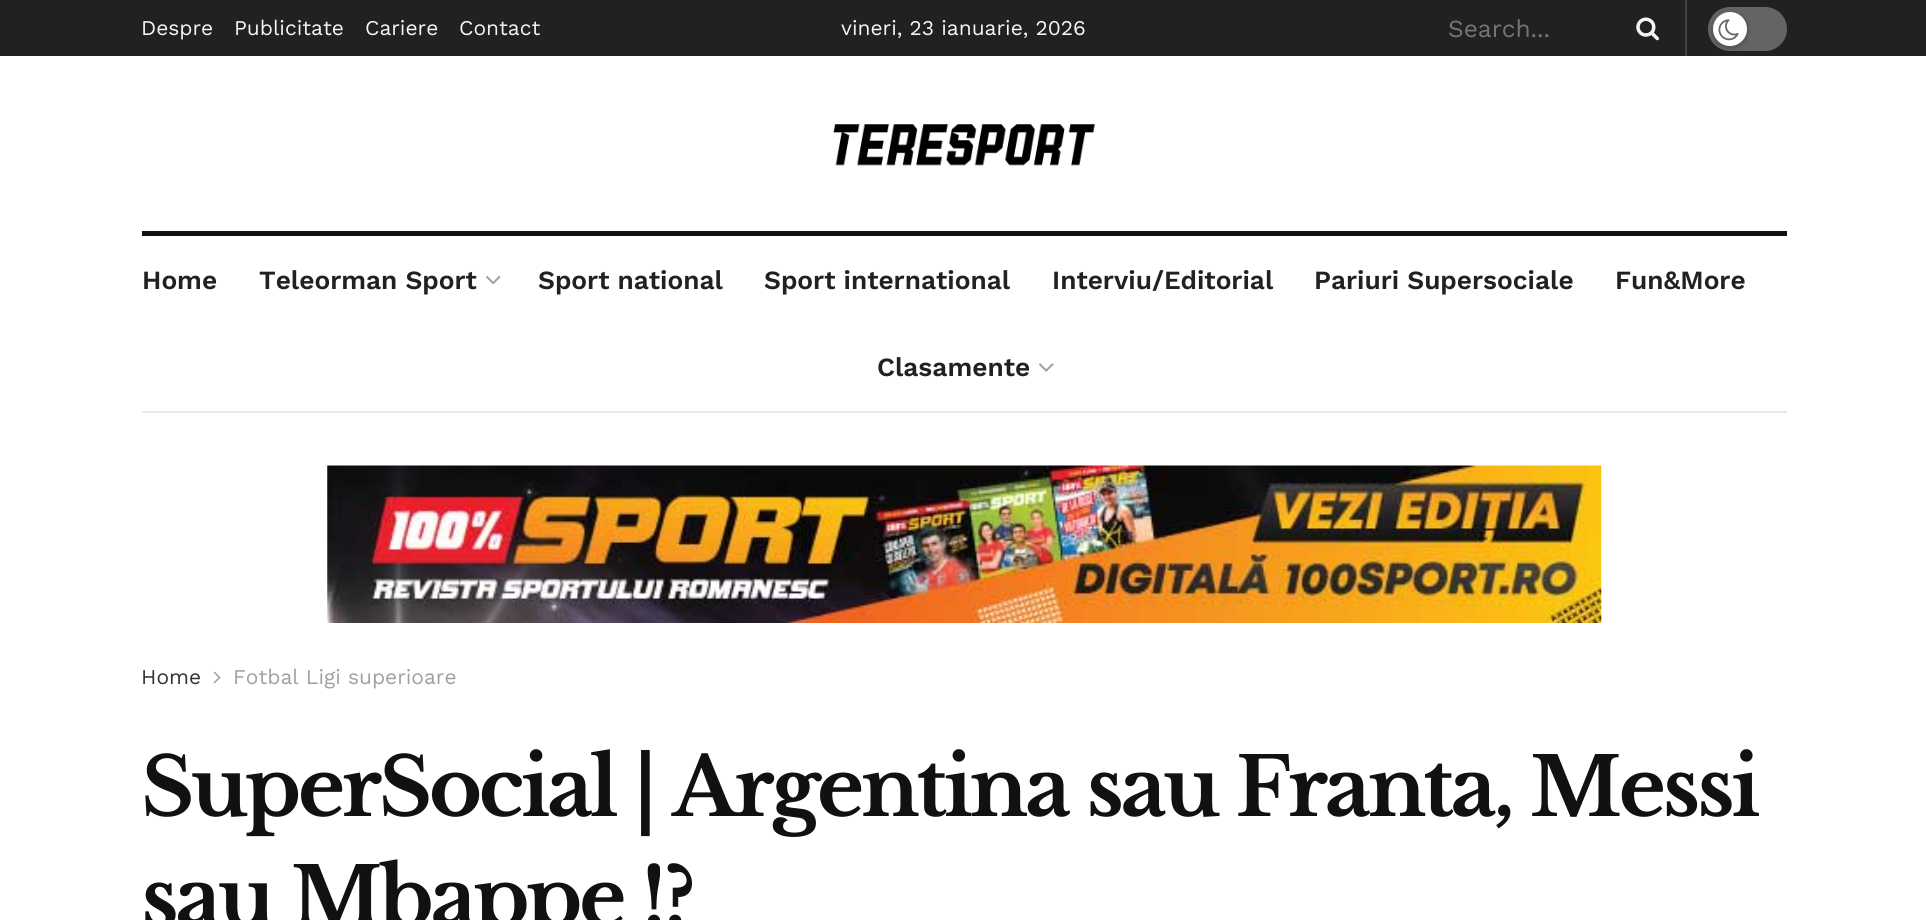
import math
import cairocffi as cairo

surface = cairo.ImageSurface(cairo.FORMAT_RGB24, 1926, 920)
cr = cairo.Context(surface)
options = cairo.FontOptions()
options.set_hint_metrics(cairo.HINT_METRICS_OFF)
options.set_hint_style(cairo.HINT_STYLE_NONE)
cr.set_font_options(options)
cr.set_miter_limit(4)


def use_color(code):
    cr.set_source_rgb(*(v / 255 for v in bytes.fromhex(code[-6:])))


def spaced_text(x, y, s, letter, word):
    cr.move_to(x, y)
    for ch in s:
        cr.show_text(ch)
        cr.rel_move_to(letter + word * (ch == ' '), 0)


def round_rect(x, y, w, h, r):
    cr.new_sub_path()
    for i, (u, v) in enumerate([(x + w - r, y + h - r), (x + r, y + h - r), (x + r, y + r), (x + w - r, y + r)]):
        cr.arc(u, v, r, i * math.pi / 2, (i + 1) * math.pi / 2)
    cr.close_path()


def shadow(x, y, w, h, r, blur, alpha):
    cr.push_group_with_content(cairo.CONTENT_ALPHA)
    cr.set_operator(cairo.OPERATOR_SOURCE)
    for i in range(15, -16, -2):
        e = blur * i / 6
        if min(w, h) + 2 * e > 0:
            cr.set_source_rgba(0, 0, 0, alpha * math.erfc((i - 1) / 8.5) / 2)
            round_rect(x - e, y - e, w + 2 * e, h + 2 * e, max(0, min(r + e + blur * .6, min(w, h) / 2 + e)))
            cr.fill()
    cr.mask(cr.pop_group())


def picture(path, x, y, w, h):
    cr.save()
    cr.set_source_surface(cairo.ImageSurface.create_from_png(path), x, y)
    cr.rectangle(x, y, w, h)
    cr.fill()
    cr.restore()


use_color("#ffffff")
cr.paint()
use_color("#212121")
cr.rectangle(0, 0, 1926, 56)
cr.fill()
cr.select_font_face("Work Sans")
cr.set_font_size(21)
use_color("#f5f5f5")
cr.move_to(141, 35)
cr.show_text("Despre")
cr.move_to(234, 35)
cr.show_text("Publicitate")
cr.move_to(365, 35)
cr.show_text("Cariere")
cr.move_to(459, 35)
cr.show_text("Contact")
cr.move_to(841, 35)
cr.show_text("vineri, 23 ianuarie, 2026")
use_color("#424242")
cr.rectangle(1685, 0, 2, 56)
cr.fill()
cr.set_font_size(24.5)
use_color("#757575")
cr.move_to(1448, 37)
cr.show_text("Search...")
picture("img1.png", 1636, 17, 23, 24)
use_color("#646464")
round_rect(1708, 7, 79, 44, 22)
cr.fill()
use_color("#000000")
shadow(1713, 14, 34, 33, 16.5, 2.5, 0.3)
use_color("#ffffff")
cr.arc(1730, 29, 17, 0, 2 * math.pi)
cr.fill()
picture("img2.png", 1718, 19, 21, 22)
picture("img3.png", 833, 124, 262, 42)
use_color("#111111")
cr.rectangle(142, 231, 1645, 5)
cr.fill()
use_color("#e8e8e8")
cr.rectangle(142, 411, 1645, 2)
cr.fill()
cr.select_font_face("Work Sans SemiBold")
cr.set_font_size(26.25)
use_color("#212121")
cr.move_to(142, 289)
cr.show_text("Home")
cr.move_to(259, 289)
cr.show_text("Teleorman Sport")
picture("img4.png", 486, 275, 15, 10)
cr.move_to(538, 289)
cr.show_text("Sport national")
cr.move_to(764, 289)
cr.show_text("Sport international")
cr.move_to(1052, 289)
cr.show_text("Interviu/Editorial")
cr.move_to(1314, 289)
cr.show_text("Pariuri Supersociale")
cr.move_to(1615, 289)
cr.show_text("Fun&More")
cr.move_to(877, 376)
cr.show_text("Clasamente")
picture("img5.png", 1039, 363, 15, 9)
picture("img6.png", 327, 465, 1275, 158)
cr.select_font_face("Work Sans")
cr.set_font_size(21)
use_color("#333333")
cr.move_to(141, 684)
cr.show_text("Home")
picture("img7.png", 213, 671, 8, 13)
use_color("#a0a0a0")
cr.move_to(233, 684)
cr.show_text("Fotbal Ligi superioare")
cr.select_font_face("Libre Baskerville", cairo.FONT_SLANT_NORMAL, cairo.FONT_WEIGHT_BOLD)
cr.set_font_size(80.5)
use_color("#111111")
spaced_text(141, 816, "SuperSocial | Argentina sau Franta, Messi", -3.2, 0)
spaced_text(141, 926, "sau Mbappe !?", -3.2, 0)
surface.write_to_png("result.png")
